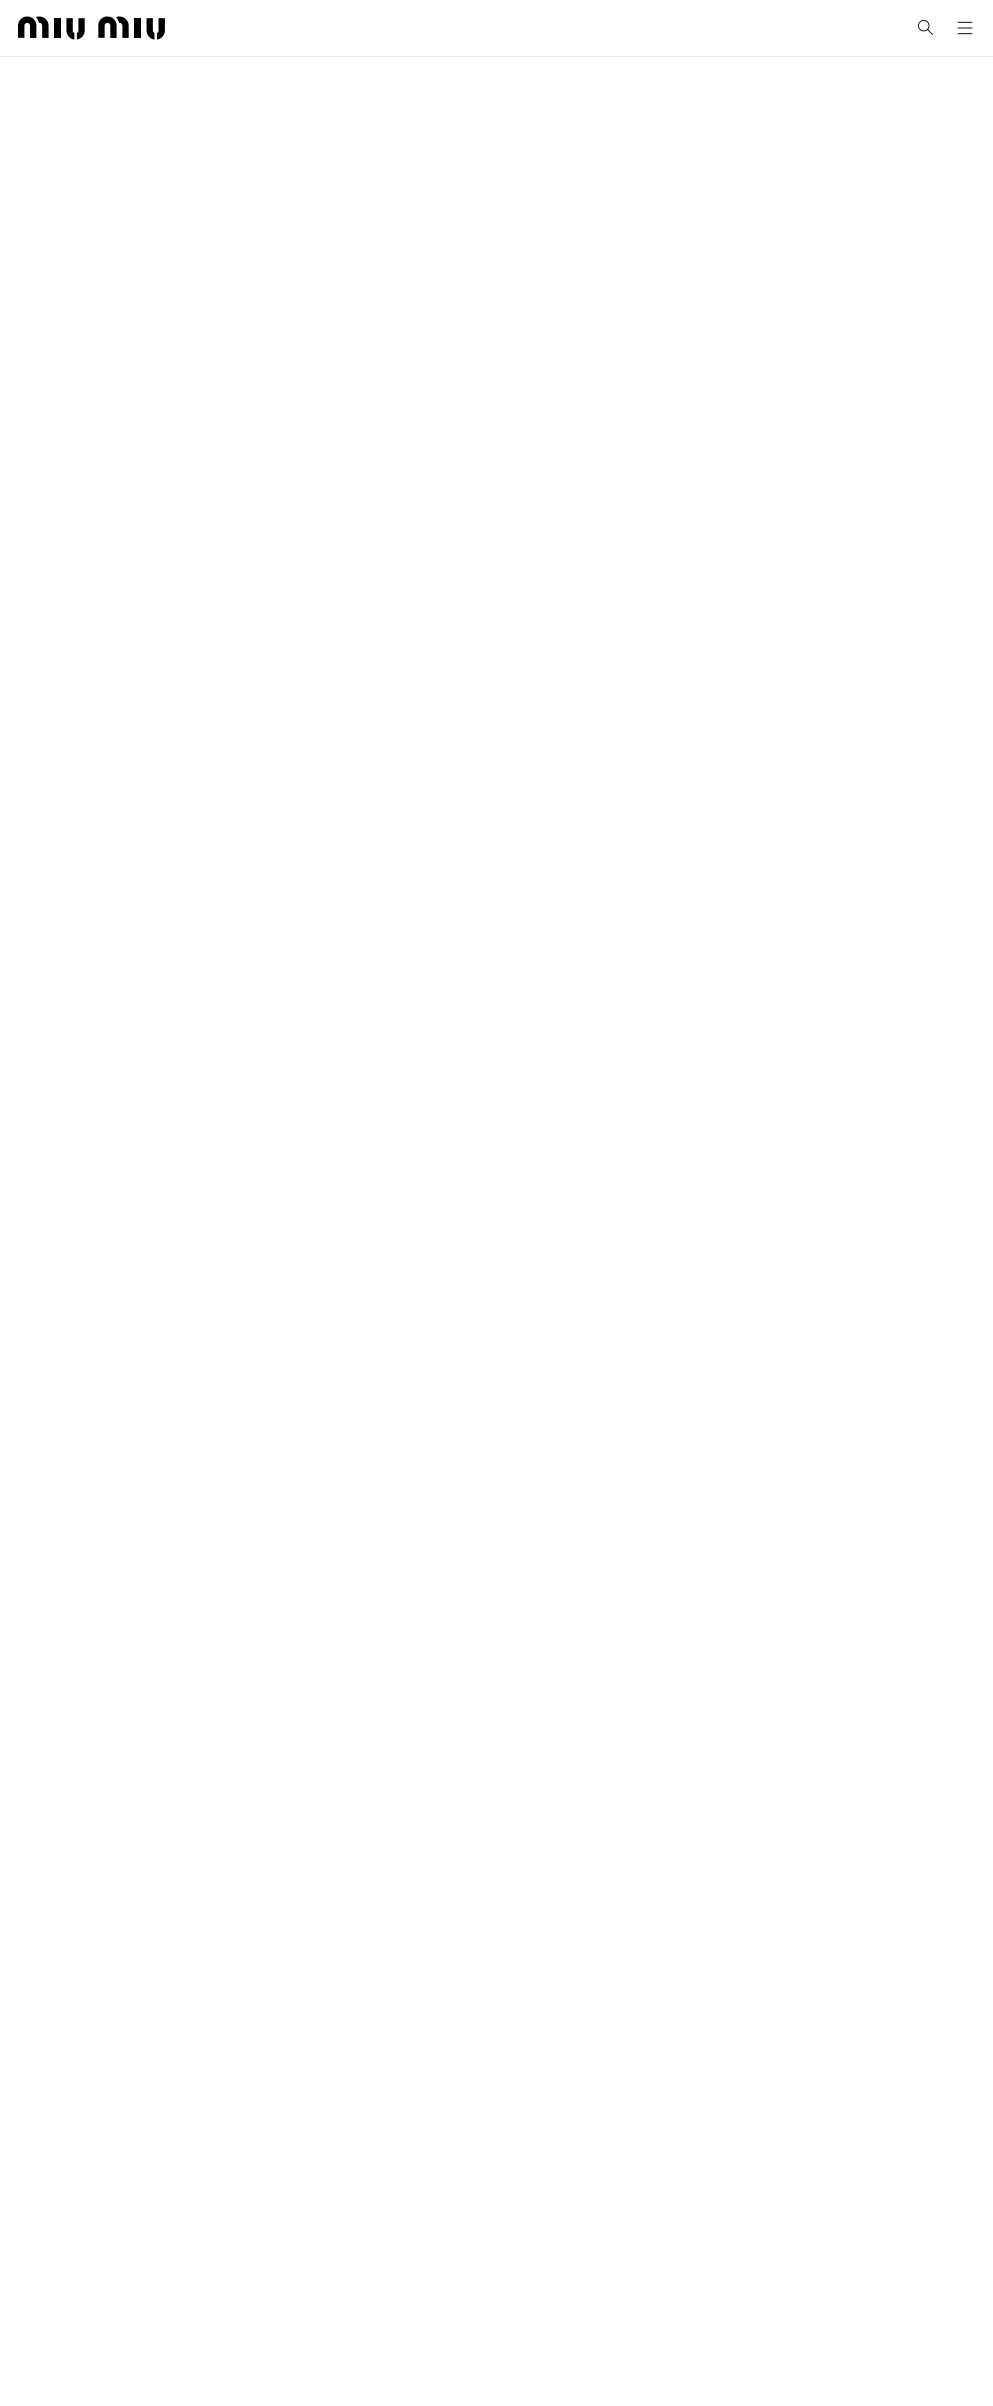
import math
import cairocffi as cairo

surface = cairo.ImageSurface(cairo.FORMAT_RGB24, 993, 2406)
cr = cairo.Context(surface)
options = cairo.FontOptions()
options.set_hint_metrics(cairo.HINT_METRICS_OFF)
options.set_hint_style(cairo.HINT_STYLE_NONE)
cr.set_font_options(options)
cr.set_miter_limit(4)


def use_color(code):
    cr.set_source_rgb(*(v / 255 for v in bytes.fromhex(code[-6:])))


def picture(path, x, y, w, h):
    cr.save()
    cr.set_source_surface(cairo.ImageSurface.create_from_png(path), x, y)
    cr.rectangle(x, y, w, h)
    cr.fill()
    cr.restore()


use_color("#ffffff")
cr.paint()
use_color("#e9e9e9")
cr.rectangle(0, 56, 993, 1)
cr.fill()
picture("img1.png", 18, 16, 147, 24)
picture("img2.png", 918, 19, 15, 16)
picture("img3.png", 957, 21, 16, 14)
surface.write_to_png("result.png")
